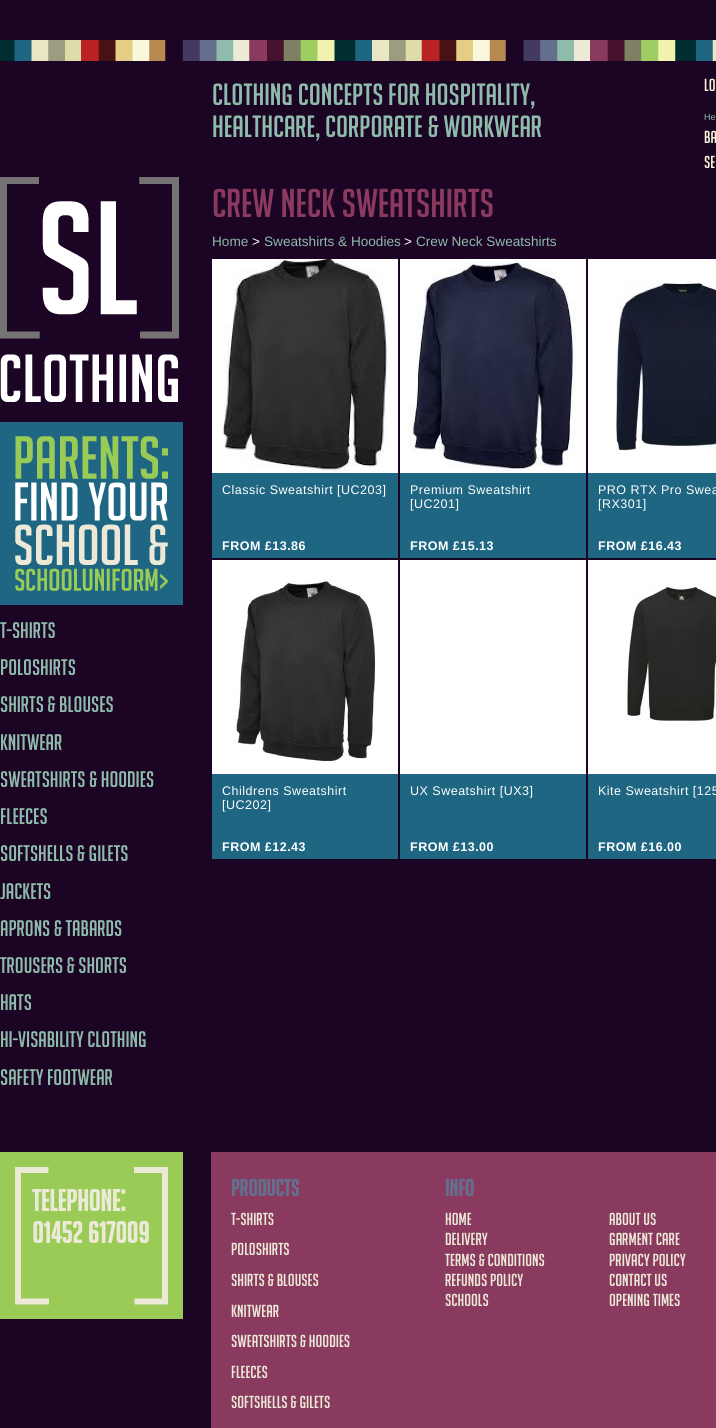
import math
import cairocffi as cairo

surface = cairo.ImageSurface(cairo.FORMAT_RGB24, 716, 1428)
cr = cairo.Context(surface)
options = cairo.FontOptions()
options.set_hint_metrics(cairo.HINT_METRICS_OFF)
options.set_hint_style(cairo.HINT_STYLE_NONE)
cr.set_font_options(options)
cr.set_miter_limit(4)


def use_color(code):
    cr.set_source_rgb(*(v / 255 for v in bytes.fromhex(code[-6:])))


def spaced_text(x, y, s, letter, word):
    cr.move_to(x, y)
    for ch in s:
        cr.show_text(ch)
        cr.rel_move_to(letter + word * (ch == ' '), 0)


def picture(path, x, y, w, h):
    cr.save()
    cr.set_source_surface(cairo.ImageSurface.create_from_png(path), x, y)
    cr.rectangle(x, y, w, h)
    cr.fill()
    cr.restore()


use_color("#1b0424")
cr.paint()
picture("img1.png", 0, 40, 716, 21)
cr.select_font_face("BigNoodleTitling")
cr.set_font_size(30)
use_color("#8ebbaa")
cr.move_to(212, 105)
cr.show_text("Clothing concepts for hospitality,")
cr.move_to(212, 137)
cr.show_text("healthcare, corporate & workwear")
cr.set_font_size(17)
use_color("#f9f8dc")
cr.move_to(704, 91)
cr.show_text("Lo")
cr.select_font_face("Liberation Sans")
cr.set_font_size(9)
use_color("#8ebbaa")
cr.move_to(704, 120)
cr.show_text("Hel")
cr.select_font_face("BigNoodleTitling")
cr.set_font_size(17)
use_color("#f9f8dc")
cr.move_to(704, 143)
cr.show_text("Ba")
cr.move_to(704, 168)
cr.show_text("Se")
picture("img2.png", 0, 177, 179, 225)
picture("img3.png", 0, 422, 183, 183)
cr.set_font_size(22)
use_color("#8ebbaa")
cr.move_to(0, 638)
cr.show_text("T-Shirts")
cr.move_to(0, 675)
cr.show_text("Poloshirts")
cr.move_to(0, 712)
cr.show_text("Shirts & Blouses")
cr.move_to(0, 750)
cr.show_text("Knitwear")
cr.move_to(0, 787)
cr.show_text("Sweatshirts & Hoodies")
cr.move_to(0, 824)
cr.show_text("Fleeces")
cr.move_to(0, 861)
cr.show_text("Softshells & Gilets")
cr.move_to(0, 899)
cr.show_text("Jackets")
cr.move_to(0, 936)
cr.show_text("Aprons & Tabards")
cr.move_to(0, 973)
cr.show_text("Trousers & Shorts")
cr.move_to(0, 1010)
cr.show_text("Hats")
cr.move_to(0, 1047)
cr.show_text("Hi-Visability Clothing")
cr.move_to(0, 1085)
cr.show_text("Safety Footwear")
cr.set_font_size(39.25)
use_color("#893a5e")
cr.move_to(212, 217)
cr.show_text("Crew Neck Sweatshirts")
cr.select_font_face("Liberation Sans")
cr.set_font_size(13.6)
use_color("#8ebbaa")
cr.move_to(212, 246)
cr.show_text("Home")
use_color("#ffffff")
cr.move_to(252, 246)
cr.show_text(">")
use_color("#8ebbaa")
cr.move_to(264, 246)
cr.show_text("Sweatshirts & Hoodies")
use_color("#ffffff")
cr.move_to(404, 246)
cr.show_text(">")
use_color("#8ebbaa")
cr.move_to(416, 246)
cr.show_text("Crew Neck Sweatshirts")
use_color("#ffffff")
cr.rectangle(212, 259, 186, 214)
cr.fill()
picture("img4.png", 221, 259, 168, 214)
use_color("#1f6682")
cr.rectangle(212, 473, 186, 85)
cr.fill()
cr.set_font_size(12.5)
use_color("#ffffff")
spaced_text(222, 494, "Classic Sweatshirt [UC203]", 0.5, 0)
cr.select_font_face("Liberation Sans", cairo.FONT_SLANT_NORMAL, cairo.FONT_WEIGHT_BOLD)
spaced_text(222, 550, "FROM £13.86", 0.5, 0)
cr.rectangle(400, 259, 186, 214)
cr.fill()
picture("img5.png", 405, 259, 172, 214)
use_color("#1f6682")
cr.rectangle(400, 473, 186, 85)
cr.fill()
cr.select_font_face("Liberation Sans")
use_color("#ffffff")
spaced_text(410, 494, "Premium Sweatshirt", 0.5, 0)
spaced_text(410, 508, "[UC201]", 0.5, 0)
cr.select_font_face("Liberation Sans", cairo.FONT_SLANT_NORMAL, cairo.FONT_WEIGHT_BOLD)
spaced_text(410, 550, "FROM £15.13", 0.5, 0)
cr.rectangle(588, 259, 128, 214)
cr.fill()
picture("img6.png", 613, 279, 103, 172)
use_color("#1f6682")
cr.rectangle(588, 473, 128, 85)
cr.fill()
cr.select_font_face("Liberation Sans")
use_color("#ffffff")
spaced_text(598, 494, "PRO RTX Pro Swea", 0.5, 0)
spaced_text(598, 508, "[RX301]", 0.5, 0)
cr.select_font_face("Liberation Sans", cairo.FONT_SLANT_NORMAL, cairo.FONT_WEIGHT_BOLD)
spaced_text(598, 550, "FROM £16.43", 0.5, 0)
cr.rectangle(212, 560, 186, 214)
cr.fill()
picture("img7.png", 233, 576, 144, 186)
use_color("#1f6682")
cr.rectangle(212, 774, 186, 85)
cr.fill()
cr.select_font_face("Liberation Sans")
use_color("#ffffff")
spaced_text(222, 795, "Childrens Sweatshirt", 0.5, 0)
spaced_text(222, 809, "[UC202]", 0.5, 0)
cr.select_font_face("Liberation Sans", cairo.FONT_SLANT_NORMAL, cairo.FONT_WEIGHT_BOLD)
spaced_text(222, 851, "FROM £12.43", 0.5, 0)
cr.rectangle(400, 560, 186, 214)
cr.fill()
use_color("#1f6682")
cr.rectangle(400, 774, 186, 85)
cr.fill()
cr.select_font_face("Liberation Sans")
use_color("#ffffff")
spaced_text(410, 795, "UX Sweatshirt [UX3]", 0.5, 0)
cr.select_font_face("Liberation Sans", cairo.FONT_SLANT_NORMAL, cairo.FONT_WEIGHT_BOLD)
spaced_text(410, 851, "FROM £13.00", 0.5, 0)
cr.rectangle(588, 560, 128, 214)
cr.fill()
picture("img8.png", 623, 584, 93, 137)
use_color("#1f6682")
cr.rectangle(588, 774, 128, 85)
cr.fill()
cr.select_font_face("Liberation Sans")
use_color("#ffffff")
spaced_text(598, 795, "Kite Sweatshirt [125", 0.5, 0)
cr.select_font_face("Liberation Sans", cairo.FONT_SLANT_NORMAL, cairo.FONT_WEIGHT_BOLD)
spaced_text(598, 851, "FROM £16.00", 0.5, 0)
use_color("#99cb56")
cr.rectangle(0, 1152, 183, 167)
cr.fill()
picture("img9.png", 15, 1167, 153, 138)
cr.select_font_face("BigNoodleTitling", cairo.FONT_SLANT_NORMAL, cairo.FONT_WEIGHT_BOLD)
cr.set_font_size(29.5)
use_color("#ece9d7")
cr.move_to(32, 1211)
cr.show_text("Telephone:")
cr.move_to(32, 1243)
cr.show_text("01452 617009")
use_color("#893a5e")
cr.rectangle(211, 1152, 505, 276)
cr.fill()
cr.set_font_size(23)
use_color("#646f8e")
cr.move_to(231, 1196)
cr.show_text("Products")
cr.move_to(445, 1196)
cr.show_text("Info")
cr.select_font_face("BigNoodleTitling")
cr.set_font_size(17)
use_color("#ece9d7")
cr.move_to(231, 1225)
cr.show_text("T-Shirts")
cr.move_to(231, 1255)
cr.show_text("Poloshirts")
cr.move_to(231, 1286)
cr.show_text("Shirts & Blouses")
cr.move_to(231, 1317)
cr.show_text("Knitwear")
cr.move_to(231, 1347)
cr.show_text("Sweatshirts & Hoodies")
cr.move_to(231, 1378)
cr.show_text("Fleeces")
cr.move_to(231, 1408)
cr.show_text("Softshells & Gilets")
cr.move_to(445, 1225)
cr.show_text("Home")
cr.move_to(609, 1225)
cr.show_text("About Us")
cr.move_to(445, 1245)
cr.show_text("Delivery")
cr.move_to(609, 1245)
cr.show_text("Garment Care")
cr.move_to(445, 1266)
cr.show_text("Terms & Conditions")
cr.move_to(609, 1266)
cr.show_text("Privacy Policy")
cr.move_to(445, 1286)
cr.show_text("Refunds Policy")
cr.move_to(609, 1286)
cr.show_text("Contact Us")
cr.move_to(445, 1306)
cr.show_text("Schools")
cr.move_to(609, 1306)
cr.show_text("Opening Times")
surface.write_to_png("result.png")
